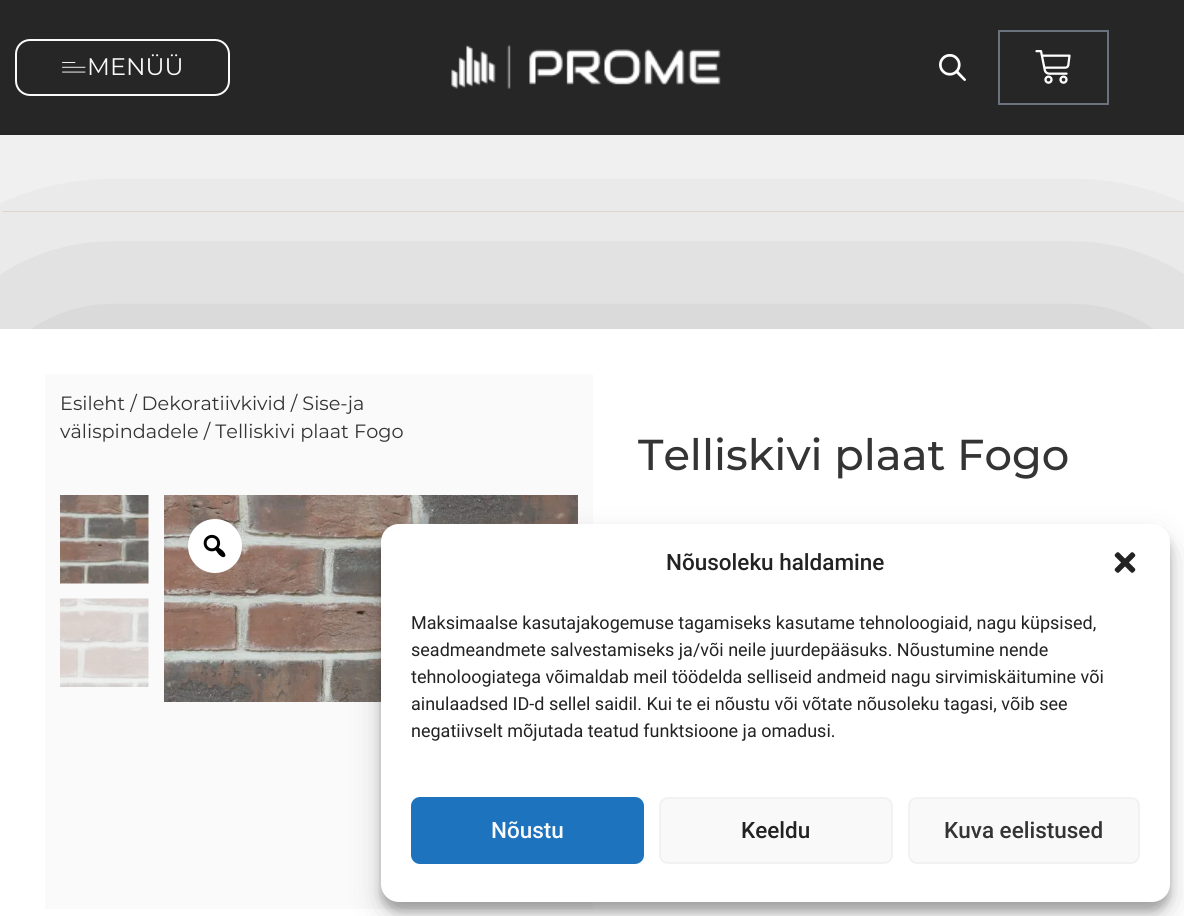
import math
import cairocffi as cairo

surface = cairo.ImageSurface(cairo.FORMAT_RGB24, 1184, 916)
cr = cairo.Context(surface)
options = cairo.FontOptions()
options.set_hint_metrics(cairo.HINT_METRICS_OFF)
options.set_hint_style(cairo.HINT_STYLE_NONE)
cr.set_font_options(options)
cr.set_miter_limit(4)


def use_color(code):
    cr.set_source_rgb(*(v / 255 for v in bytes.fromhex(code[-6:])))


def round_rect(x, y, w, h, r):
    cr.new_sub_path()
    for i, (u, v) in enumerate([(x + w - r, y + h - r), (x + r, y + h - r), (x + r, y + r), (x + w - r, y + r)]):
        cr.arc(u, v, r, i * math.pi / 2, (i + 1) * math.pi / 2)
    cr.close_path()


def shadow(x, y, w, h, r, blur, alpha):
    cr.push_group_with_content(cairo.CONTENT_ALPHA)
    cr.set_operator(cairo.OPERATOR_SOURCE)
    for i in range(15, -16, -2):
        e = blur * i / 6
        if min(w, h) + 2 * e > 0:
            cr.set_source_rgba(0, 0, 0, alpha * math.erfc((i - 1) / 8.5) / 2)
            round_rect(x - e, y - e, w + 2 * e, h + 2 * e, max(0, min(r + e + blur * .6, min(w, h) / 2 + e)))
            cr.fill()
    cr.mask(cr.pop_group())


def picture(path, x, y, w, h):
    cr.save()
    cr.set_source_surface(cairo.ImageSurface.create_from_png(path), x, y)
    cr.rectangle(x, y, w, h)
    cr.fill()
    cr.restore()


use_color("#fafafa")
cr.paint()
picture("img5.png", 1, 211, 1183, 1)
use_color("#000000")
shadow(0, 335, 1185, 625, 0, 187.5, 0.26)
use_color("#262626")
cr.rectangle(0, 0, 1184, 135)
cr.fill()
round_rect(16, 40, 213, 55, 14)
use_color("#fafafa")
cr.stroke()
picture("img1.png", 62, 62, 24, 11)
cr.select_font_face("Montserrat")
cr.set_font_size(24)
cr.move_to(87, 75)
cr.show_text("MENÜÜ")
picture("img2.png", 451, 44, 270, 45)
picture("img3.png", 939, 54, 27, 27)
cr.rectangle(999, 31, 109, 73)
use_color("#69727d")
cr.stroke()
picture("img4.png", 1035, 50, 36, 34)
use_color("#ffffff")
cr.rectangle(0, 329, 1184, 587)
cr.fill()
use_color("#fafafa")
cr.rectangle(45, 374, 548, 535)
cr.fill()
cr.set_font_size(19.25)
use_color("#343434")
cr.move_to(60, 410)
cr.show_text("Esileht / Dekoratiivkivid / Sise-ja")
cr.move_to(60, 438)
cr.show_text("välispindadele / Telliskivi plaat Fogo")
picture("img6.png", 60, 495, 89, 89)
picture("img7.png", 60, 598, 89, 89)
picture("img8.png", 164, 495, 414, 207)
use_color("#ffffff")
cr.arc(215, 546, 27, 0, 2 * math.pi)
cr.fill()
picture("img9.png", 203, 534, 23, 24)
cr.select_font_face("Montserrat Medium")
cr.set_font_size(43.25)
use_color("#343434")
cr.move_to(638, 470)
cr.show_text("Telliskivi plaat Fogo")
use_color("#000000")
shadow(381, 533, 789, 378, 18, 4.5, 0.23)
shadow(381, 539, 789, 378, 18, 15, 0.19)
use_color("#ffffff")
round_rect(381, 524, 789, 378, 18)
cr.fill()
cr.select_font_face("Roboto Medium")
cr.set_font_size(22.5)
use_color("#222222")
cr.move_to(666, 570)
cr.show_text("Nõusoleku haldamine")
picture("img10.png", 1114, 552, 22, 21)
cr.select_font_face("Roboto")
cr.set_font_size(18)
cr.move_to(411, 629)
cr.show_text("Maksimaalse kasutajakogemuse tagamiseks kasutame tehnoloogiaid, nagu küpsised,")
cr.move_to(411, 656)
cr.show_text("seadmeandmete salvestamiseks ja/või neile juurdepääsuks. Nõustumine nende")
cr.move_to(411, 683)
cr.show_text("tehnoloogiatega võimaldab meil töödelda selliseid andmeid nagu sirvimiskäitumine või")
cr.move_to(411, 710)
cr.show_text("ainulaadsed ID-d sellel saidil. Kui te ei nõustu või võtate nõusoleku tagasi, võib see")
cr.move_to(411, 737)
cr.show_text("negatiivselt mõjutada teatud funktsioone ja omadusi.")
use_color("#1e73be")
round_rect(412, 798, 231, 65, 8)
cr.fill_preserve()
cr.stroke()
cr.select_font_face("Roboto Medium")
cr.set_font_size(22.5)
use_color("#fafafa")
cr.move_to(491, 838)
cr.show_text("Nõustu")
use_color("#f9f9f9")
round_rect(660, 798, 232, 65, 8)
cr.fill_preserve()
use_color("#f2f2f2")
cr.stroke()
use_color("#222222")
cr.move_to(741, 838)
cr.show_text("Keeldu")
use_color("#f9f9f9")
round_rect(909, 798, 230, 65, 8)
cr.fill_preserve()
use_color("#f2f2f2")
cr.stroke()
use_color("#343434")
cr.move_to(944, 838)
cr.show_text("Kuva eelistused")
surface.write_to_png("result.png")
